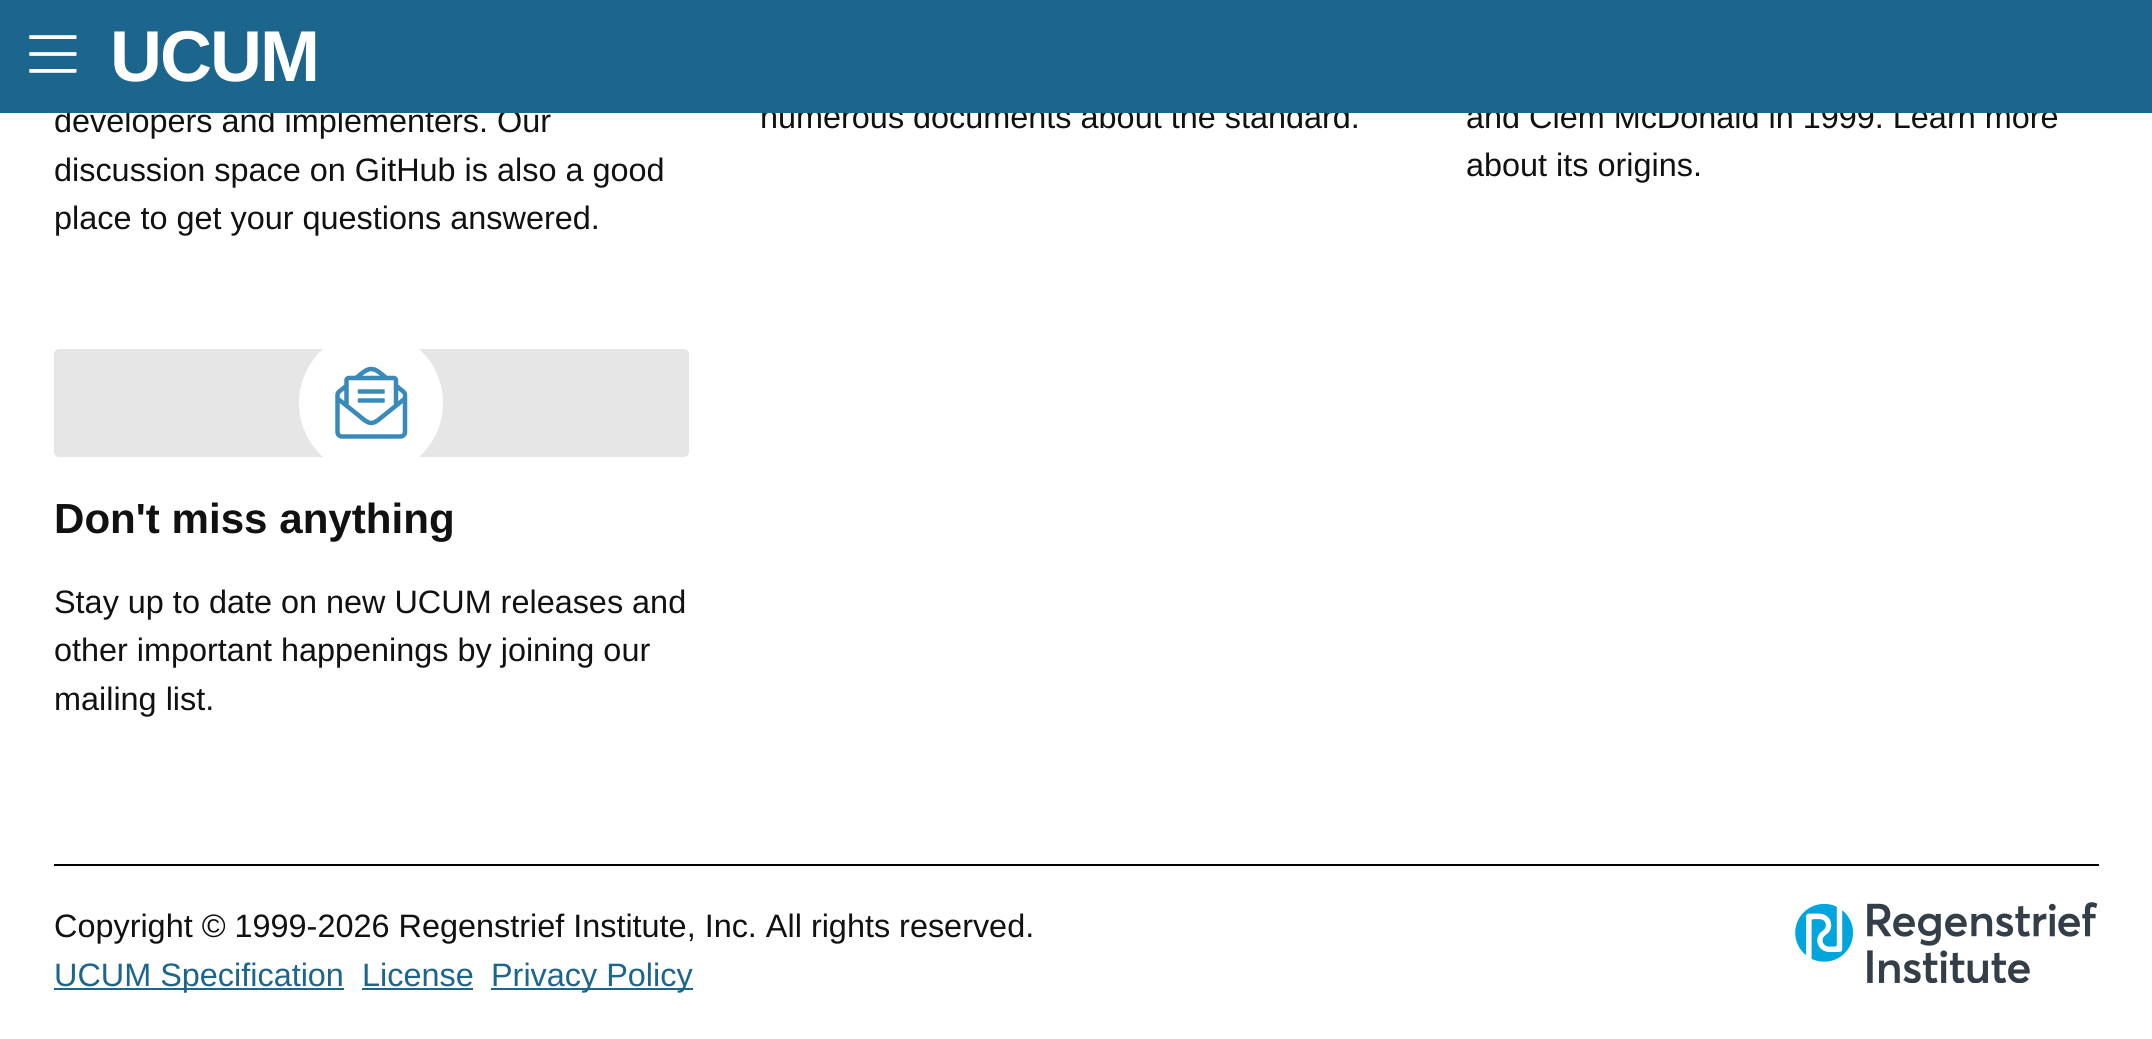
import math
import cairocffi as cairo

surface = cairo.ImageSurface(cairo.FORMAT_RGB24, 2152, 1039)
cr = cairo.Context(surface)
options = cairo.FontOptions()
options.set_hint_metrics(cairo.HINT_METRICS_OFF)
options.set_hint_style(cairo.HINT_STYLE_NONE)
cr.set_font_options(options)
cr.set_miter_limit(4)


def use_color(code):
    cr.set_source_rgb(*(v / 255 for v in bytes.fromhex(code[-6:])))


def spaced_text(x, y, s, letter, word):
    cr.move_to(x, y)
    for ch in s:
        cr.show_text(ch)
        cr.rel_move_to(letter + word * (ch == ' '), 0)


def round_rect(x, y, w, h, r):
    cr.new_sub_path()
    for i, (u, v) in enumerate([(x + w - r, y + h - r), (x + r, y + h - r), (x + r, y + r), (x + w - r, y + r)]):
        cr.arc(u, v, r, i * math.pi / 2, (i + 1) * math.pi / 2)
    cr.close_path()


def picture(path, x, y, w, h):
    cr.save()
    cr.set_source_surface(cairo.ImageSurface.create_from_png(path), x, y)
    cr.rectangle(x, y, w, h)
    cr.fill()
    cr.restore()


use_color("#ffffff")
cr.paint()
cr.select_font_face("Liberation Sans")
cr.set_font_size(32.4)
use_color("#111111")
cr.move_to(54, 132)
cr.show_text("developers and implementers. Our")
cr.move_to(760, 128)
cr.show_text("numerous documents about the standard.")
cr.move_to(1466, 128)
cr.show_text("and Clem McDonald in 1999. Learn more")
use_color("#1c658c")
cr.rectangle(0, 0, 2152, 113)
cr.fill()
picture("img1.png", 29, 35, 48, 38)
cr.select_font_face("Liberation Sans", cairo.FONT_SLANT_NORMAL, cairo.FONT_WEIGHT_BOLD)
cr.set_font_size(72)
use_color("#ffffff")
spaced_text(110, 81, "UCUM", -2, 0)
cr.select_font_face("Liberation Sans")
cr.set_font_size(32.4)
use_color("#111111")
cr.move_to(54, 181)
cr.show_text("discussion space on GitHub is also a good")
cr.move_to(54, 229)
cr.show_text("place to get your questions answered.")
cr.move_to(1466, 176)
cr.show_text("about its origins.")
use_color("#e6e6e6")
round_rect(54, 349, 635, 108, 5)
cr.fill()
use_color("#ffffff")
cr.new_path()
cr.move_to(323, 457)
cr.curve_to(291, 428, 291, 378, 323, 349)
cr.line_to(419, 349)
cr.curve_to(451, 378, 451, 428, 419, 457)
cr.close_path()
cr.fill()
picture("img2.png", 335, 366, 73, 73)
cr.select_font_face("Liberation Sans", cairo.FONT_SLANT_NORMAL, cairo.FONT_WEIGHT_BOLD)
cr.set_font_size(42.1)
use_color("#111111")
cr.move_to(54, 533)
cr.show_text("Don't miss anything")
cr.select_font_face("Liberation Sans")
cr.set_font_size(32.4)
cr.move_to(54, 613)
cr.show_text("Stay up to date on new UCUM releases and")
cr.move_to(54, 661)
cr.show_text("other important happenings by joining our")
cr.move_to(54, 710)
cr.show_text("mailing list.")
use_color("#000000")
cr.rectangle(54, 864, 2045, 2)
cr.fill()
use_color("#111111")
cr.move_to(54, 937)
cr.show_text("Copyright © 1999-2026 Regenstrief Institute, Inc. All rights reserved.")
use_color("#1c658c")
cr.rectangle(54, 988, 290, 2)
cr.fill()
cr.move_to(54, 986)
cr.show_text("UCUM Specification")
cr.move_to(362, 986)
cr.show_text("License")
cr.rectangle(362, 988, 111, 2)
cr.fill()
cr.rectangle(491, 988, 202, 2)
cr.fill()
cr.move_to(491, 986)
cr.show_text("Privacy Policy")
picture("img3.png", 1795, 902, 303, 81)
surface.write_to_png("result.png")
